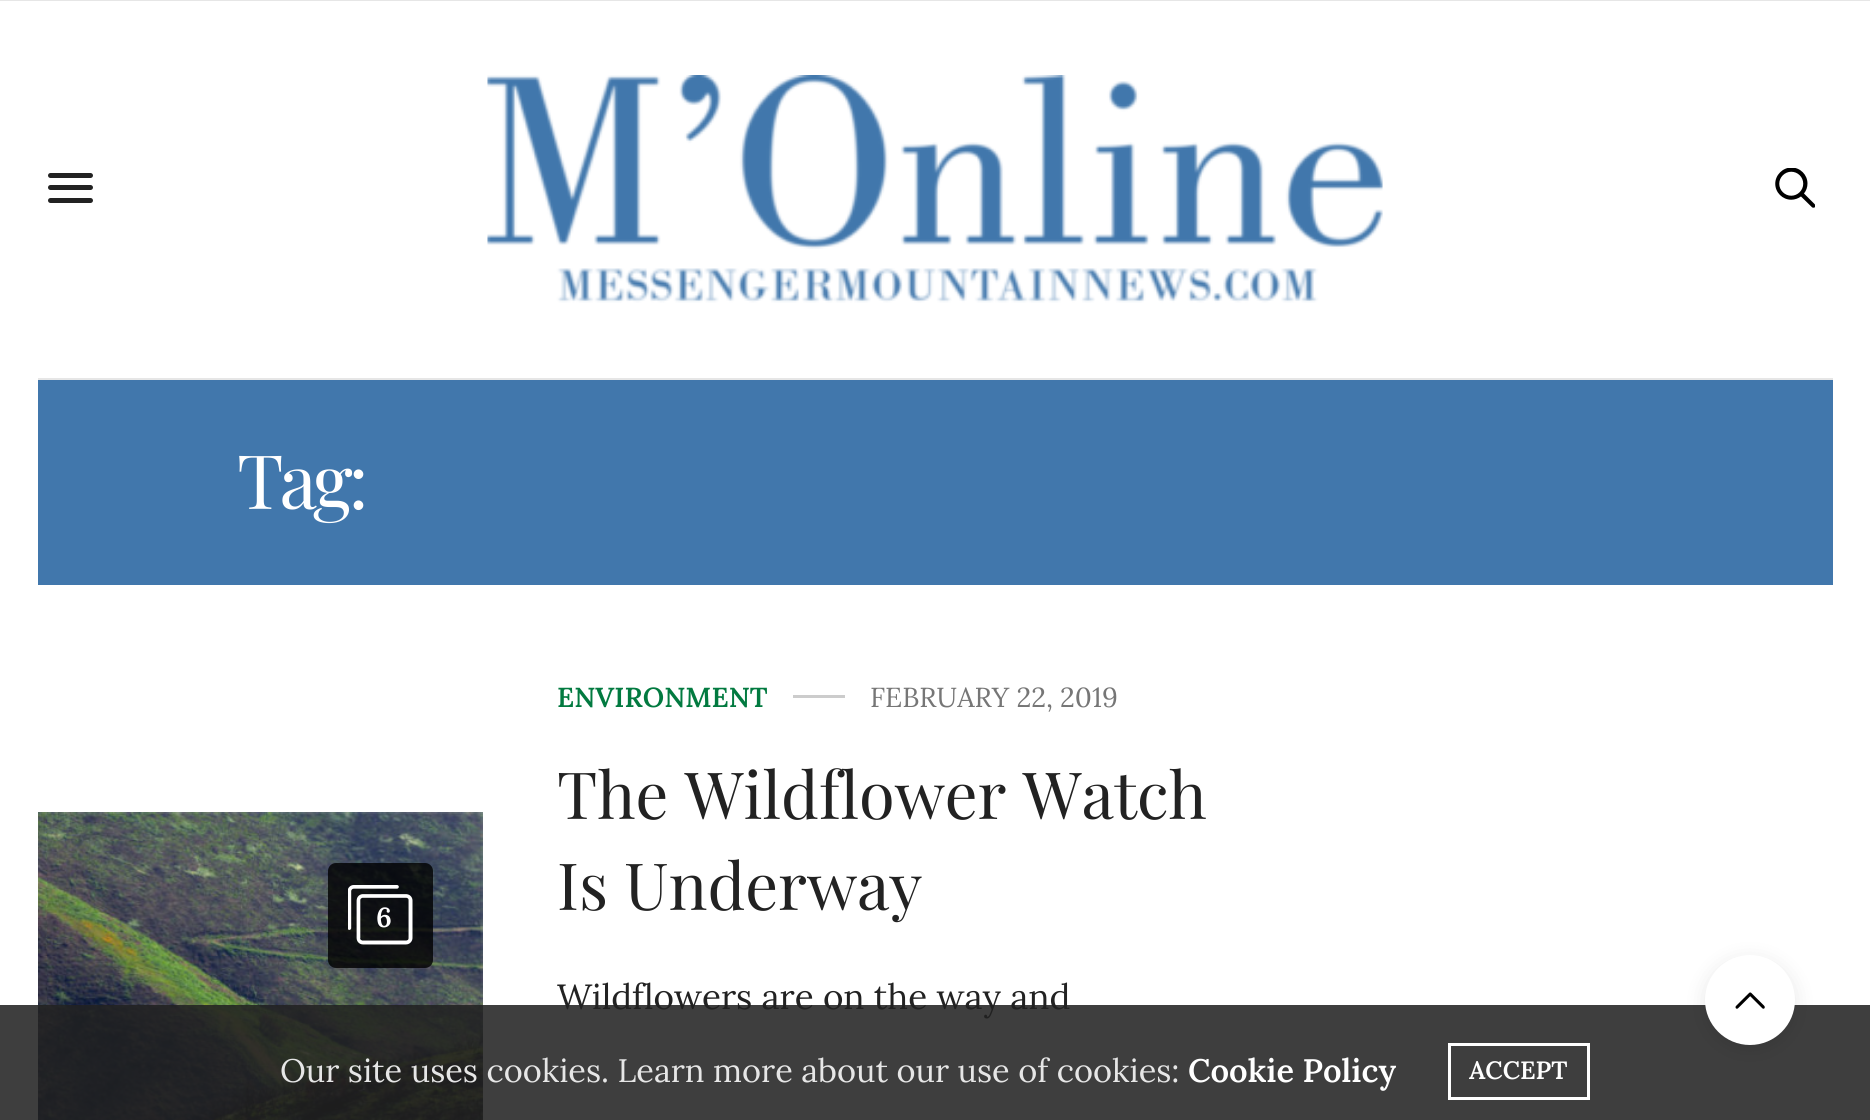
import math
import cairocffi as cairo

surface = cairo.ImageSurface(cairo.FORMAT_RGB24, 1870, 1120)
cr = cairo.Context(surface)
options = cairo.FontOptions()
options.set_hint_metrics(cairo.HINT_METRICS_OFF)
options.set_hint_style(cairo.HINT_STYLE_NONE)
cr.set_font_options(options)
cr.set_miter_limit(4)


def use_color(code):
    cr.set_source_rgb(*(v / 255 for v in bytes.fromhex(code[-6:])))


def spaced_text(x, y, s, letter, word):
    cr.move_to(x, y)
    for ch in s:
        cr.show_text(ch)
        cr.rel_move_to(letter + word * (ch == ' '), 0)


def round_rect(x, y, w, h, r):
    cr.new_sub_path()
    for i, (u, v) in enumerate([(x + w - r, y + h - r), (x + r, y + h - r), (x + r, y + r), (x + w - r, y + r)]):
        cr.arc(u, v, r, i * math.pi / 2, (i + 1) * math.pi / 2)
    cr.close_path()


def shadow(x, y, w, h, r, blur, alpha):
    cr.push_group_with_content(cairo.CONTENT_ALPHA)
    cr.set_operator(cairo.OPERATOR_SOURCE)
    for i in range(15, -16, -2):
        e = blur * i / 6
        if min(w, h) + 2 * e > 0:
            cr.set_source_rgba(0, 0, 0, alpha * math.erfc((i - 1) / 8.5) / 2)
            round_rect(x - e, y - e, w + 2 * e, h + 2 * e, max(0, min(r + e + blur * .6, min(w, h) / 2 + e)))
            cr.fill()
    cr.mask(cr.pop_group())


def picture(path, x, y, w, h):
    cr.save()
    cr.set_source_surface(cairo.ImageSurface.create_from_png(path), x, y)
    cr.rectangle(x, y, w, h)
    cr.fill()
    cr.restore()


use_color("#ffffff")
cr.paint()
use_color("#e6e6e6")
cr.rectangle(0, 0, 1870, 1)
cr.fill()
cr.rectangle(38, 378, 1795, 2)
cr.fill()
use_color("#222222")
round_rect(48, 173, 45, 5, 2.5)
cr.fill()
round_rect(48, 185, 45, 5, 2.5)
cr.fill()
round_rect(48, 198, 45, 5, 2.5)
cr.fill()
picture("img1.png", 487, 75, 896, 228)
picture("img2.png", 1775, 168, 40, 40)
use_color("#4177ac")
cr.rectangle(38, 380, 1795, 205)
cr.fill()
cr.select_font_face("Playfair Display")
cr.set_font_size(75)
use_color("#ffffff")
spaced_text(237, 509, "Tag:", -4, 0)
picture("img3.png", 38, 812, 445, 308)
cr.set_source_rgba(0, 0, 0, 0.8)
round_rect(328, 863, 105, 105, 8)
cr.fill()
picture("img4.png", 348, 885, 65, 60)
cr.select_font_face("Lora SemiBold")
cr.set_font_size(27.5)
use_color("#ffffff")
cr.move_to(376, 927)
cr.show_text("6")
use_color("#027a40")
cr.move_to(557, 707)
cr.show_text("ENVIRONMENT")
use_color("#cccccc")
cr.rectangle(793, 695, 52, 3)
cr.fill()
cr.select_font_face("Lora")
use_color("#767676")
cr.move_to(870, 707)
cr.show_text("FEBRUARY 22, 2019")
cr.select_font_face("Playfair Display")
cr.set_font_size(65)
use_color("#222222")
cr.move_to(557, 819)
cr.show_text("The Wildflower Watch")
cr.move_to(557, 910)
cr.show_text("Is Underway")
cr.select_font_face("Lora")
cr.set_font_size(35)
cr.move_to(557, 1009)
cr.show_text("Wildflowers are on the way and")
cr.set_source_rgba(0.133, 0.133, 0.133, 0.87)
cr.rectangle(0, 1005, 1870, 115)
cr.fill()
use_color("#000000")
shadow(1705, 960, 90, 90, 45, 10, 0.1)
use_color("#ffffff")
cr.arc(1750, 1000, 45, 0, 2 * math.pi)
cr.fill()
picture("img5.png", 1735, 992, 30, 17)
cr.set_font_size(32.5)
use_color("#e6e6e6")
cr.move_to(280, 1082)
cr.show_text("Our site uses cookies. Learn more about our use of cookies:")
cr.select_font_face("Lora SemiBold")
use_color("#ffffff")
cr.move_to(1188, 1082)
cr.show_text("Cookie Policy")
cr.rectangle(1449.5, 1044.5, 139, 54)
cr.set_line_width(3)
cr.stroke()
cr.set_font_size(25)
cr.move_to(1469, 1079)
cr.show_text("ACCEPT")
surface.write_to_png("result.png")
